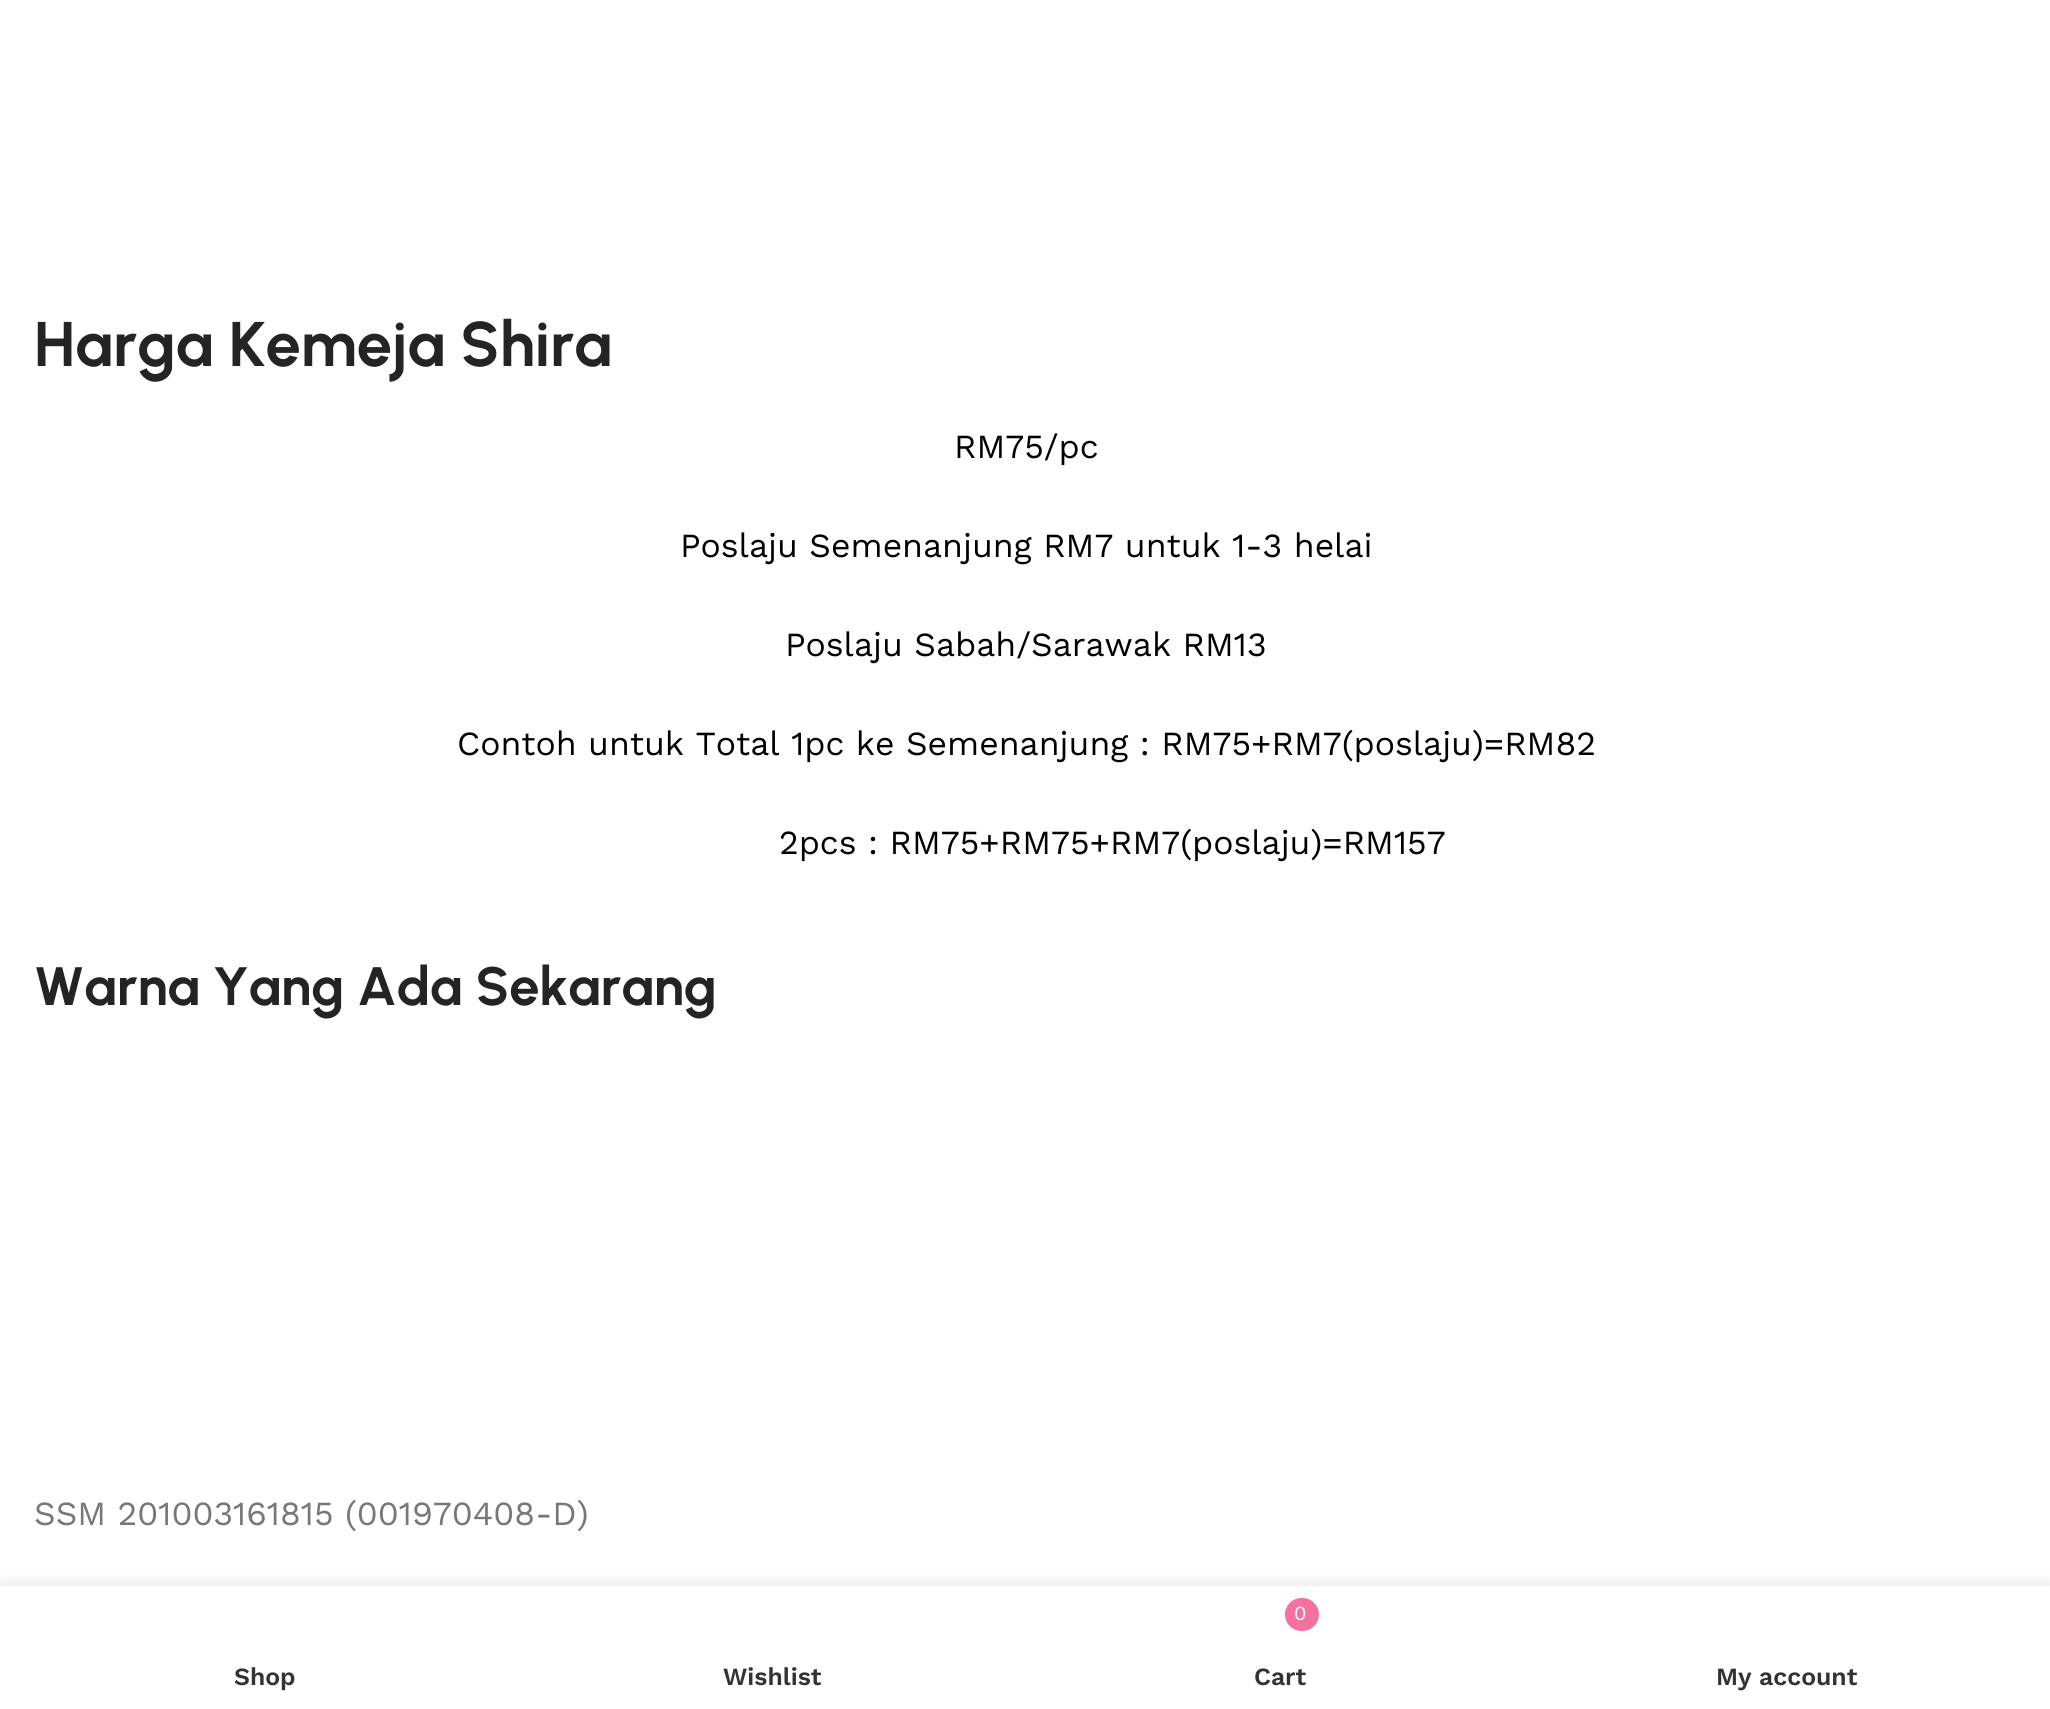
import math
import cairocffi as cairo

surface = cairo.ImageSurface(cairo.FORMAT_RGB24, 2050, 1709)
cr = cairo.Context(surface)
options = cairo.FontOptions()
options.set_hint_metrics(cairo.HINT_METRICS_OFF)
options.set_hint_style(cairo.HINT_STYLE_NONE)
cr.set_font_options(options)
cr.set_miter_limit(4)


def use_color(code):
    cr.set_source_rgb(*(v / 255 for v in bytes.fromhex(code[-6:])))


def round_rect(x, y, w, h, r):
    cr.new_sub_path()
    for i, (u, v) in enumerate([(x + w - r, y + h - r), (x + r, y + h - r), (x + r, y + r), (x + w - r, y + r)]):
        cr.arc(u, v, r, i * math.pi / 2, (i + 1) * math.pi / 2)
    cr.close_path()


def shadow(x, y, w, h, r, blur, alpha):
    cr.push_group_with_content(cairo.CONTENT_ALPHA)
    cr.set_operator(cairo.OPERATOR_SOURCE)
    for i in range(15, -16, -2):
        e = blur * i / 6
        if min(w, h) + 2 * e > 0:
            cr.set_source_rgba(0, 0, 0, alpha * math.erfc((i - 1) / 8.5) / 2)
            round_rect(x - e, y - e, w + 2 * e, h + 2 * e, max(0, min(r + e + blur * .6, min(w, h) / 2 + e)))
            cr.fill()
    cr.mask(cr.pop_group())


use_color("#ffffff")
cr.paint()
cr.select_font_face("Urbanist", cairo.FONT_SLANT_NORMAL, cairo.FONT_WEIGHT_BOLD)
cr.set_font_size(63)
use_color("#242424")
cr.move_to(34, 366)
cr.show_text("Harga Kemeja Shira")
cr.select_font_face("Work Sans")
cr.set_font_size(33.75)
use_color("#000000")
cr.move_to(954, 458)
cr.show_text("RM75/pc")
cr.move_to(680, 557)
cr.show_text("Poslaju Semenanjung RM7 untuk 1-3 helai")
cr.move_to(785, 656)
cr.show_text("Poslaju Sabah/Sarawak RM13")
cr.move_to(457, 755)
cr.show_text("Contoh untuk Total 1pc ke Semenanjung : RM75+RM7(poslaju)=RM82")
cr.move_to(779, 854)
cr.show_text("2pcs : RM75+RM75+RM7(poslaju)=RM157")
cr.select_font_face("Urbanist", cairo.FONT_SLANT_NORMAL, cairo.FONT_WEIGHT_BOLD)
cr.set_font_size(54)
use_color("#242424")
cr.move_to(34, 1005)
cr.show_text("Warna Yang Ada Sekarang")
cr.select_font_face("Work Sans")
cr.set_font_size(33.75)
use_color("#777777")
cr.move_to(34, 1525)
cr.show_text("SSM 201003161815 (001970408-D)")
use_color("#000000")
shadow(0, 1586, 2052, 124, 0, 10, 0.12)
use_color("#ffffff")
cr.rectangle(0, 1586, 2050, 123)
cr.fill()
cr.select_font_face("Work Sans SemiBold")
cr.set_font_size(24.75)
use_color("#333333")
cr.move_to(234, 1685)
cr.show_text("Shop")
cr.move_to(723, 1685)
cr.show_text("Wishlist")
use_color("#f5729e")
round_rect(1285, 1598, 34, 33, 16.5)
cr.fill()
cr.select_font_face("Work Sans")
cr.set_font_size(20)
use_color("#ffffff")
cr.move_to(1294, 1620)
cr.show_text("0")
cr.select_font_face("Work Sans SemiBold")
cr.set_font_size(24.75)
use_color("#333333")
cr.move_to(1254, 1685)
cr.show_text("Cart")
cr.move_to(1716, 1685)
cr.show_text("My account")
surface.write_to_png("result.png")
